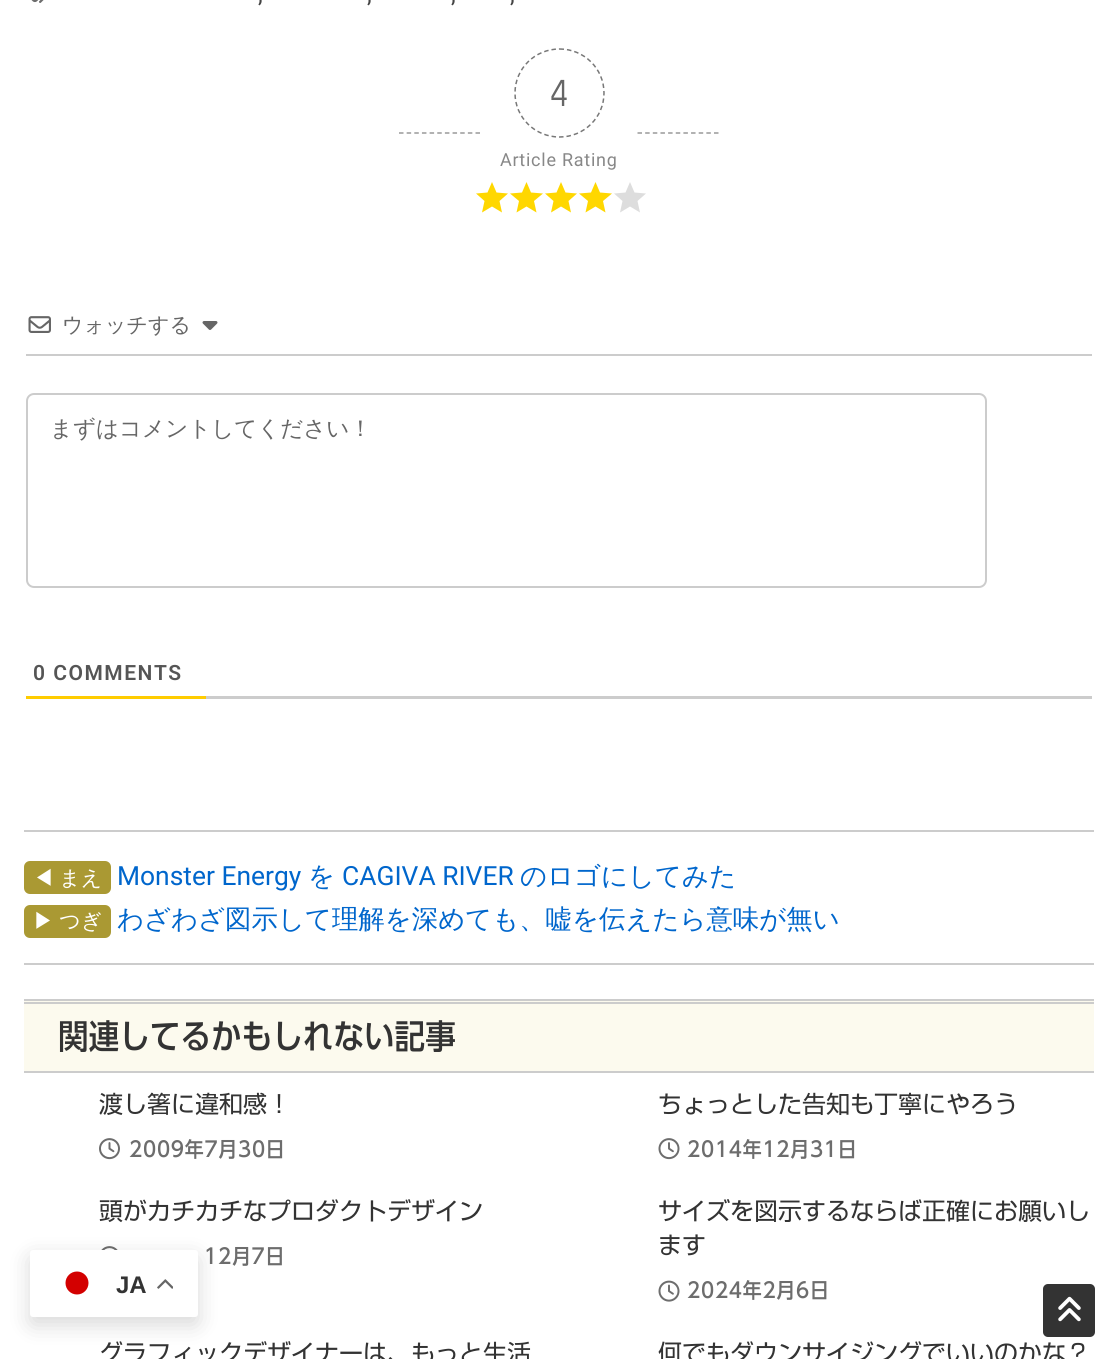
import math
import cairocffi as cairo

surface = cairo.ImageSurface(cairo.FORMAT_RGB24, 1117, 1359)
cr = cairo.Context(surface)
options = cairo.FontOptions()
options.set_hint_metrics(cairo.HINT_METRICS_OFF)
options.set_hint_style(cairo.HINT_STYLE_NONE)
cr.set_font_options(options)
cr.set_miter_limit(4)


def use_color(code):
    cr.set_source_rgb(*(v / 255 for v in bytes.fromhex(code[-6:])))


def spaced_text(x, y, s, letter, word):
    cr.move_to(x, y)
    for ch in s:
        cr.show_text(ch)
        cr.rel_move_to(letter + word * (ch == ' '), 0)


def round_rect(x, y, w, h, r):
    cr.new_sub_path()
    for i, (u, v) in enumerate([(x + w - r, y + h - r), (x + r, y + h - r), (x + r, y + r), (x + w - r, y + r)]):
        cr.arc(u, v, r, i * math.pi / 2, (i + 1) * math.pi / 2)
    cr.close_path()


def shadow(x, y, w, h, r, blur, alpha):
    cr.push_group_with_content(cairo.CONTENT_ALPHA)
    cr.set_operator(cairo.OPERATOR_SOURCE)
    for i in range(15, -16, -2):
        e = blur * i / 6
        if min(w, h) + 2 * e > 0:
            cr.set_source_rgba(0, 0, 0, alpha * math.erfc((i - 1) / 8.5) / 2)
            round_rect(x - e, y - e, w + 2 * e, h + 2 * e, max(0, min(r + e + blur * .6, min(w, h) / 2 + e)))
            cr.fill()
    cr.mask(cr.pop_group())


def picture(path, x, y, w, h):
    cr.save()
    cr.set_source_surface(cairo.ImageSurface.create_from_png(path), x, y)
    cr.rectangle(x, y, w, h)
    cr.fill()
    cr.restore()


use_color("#ffffff")
cr.paint()
picture("img1.png", 31, 0, 13, 3)
cr.select_font_face("Roboto")
cr.set_font_size(24)
use_color("#444444")
cr.move_to(258, 2)
cr.show_text(",")
cr.move_to(367, 2)
cr.show_text(",")
cr.move_to(451, 2)
cr.show_text(",")
cr.move_to(510, 2)
cr.show_text(",")
cr.new_path()
cr.move_to(399, 133)
cr.line_to(480, 133)
use_color("#999999")
cr.set_line_width(1.5)
cr.set_dash([4.5, 3.15])
cr.stroke()
cr.new_path()
cr.move_to(559.5, 49)
cr.curve_to(584, 49, 604, 68.5, 604, 93)
cr.curve_to(604, 117.5, 584, 137, 559.5, 137)
cr.curve_to(535, 137, 515, 117.5, 515, 93)
cr.curve_to(515, 68.5, 535, 49, 559.5, 49)
cr.close_path()
use_color("#777777")
cr.set_dash([4.5, 3])
cr.stroke()
cr.select_font_face("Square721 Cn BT")
cr.set_font_size(36)
use_color("#666666")
cr.move_to(550, 106)
cr.show_text("4")
cr.select_font_face("Roboto")
cr.set_font_size(18)
use_color("#888888")
spaced_text(500, 166, "Article Rating", 0.75, 0)
use_color("#ffd700")
cr.new_path()
cr.move_to(492, 206.5)
cr.line_to(502, 212.5)
cr.line_to(499.5, 201)
cr.line_to(508, 193.5)
cr.line_to(496.5, 192.5)
cr.line_to(492, 182)
cr.line_to(487.5, 192.5)
cr.line_to(476, 193.5)
cr.line_to(484.5, 201)
cr.line_to(482, 212.5)
cr.close_path()
cr.fill()
cr.new_path()
cr.move_to(526.5, 206.5)
cr.line_to(536.5, 212.5)
cr.line_to(534, 201)
cr.line_to(543, 193.5)
cr.line_to(531, 192.5)
cr.line_to(526.5, 182)
cr.line_to(522, 192.5)
cr.line_to(510, 193.5)
cr.line_to(519, 201)
cr.line_to(516.5, 212.5)
cr.close_path()
cr.fill()
cr.new_path()
cr.move_to(561, 206.5)
cr.line_to(571, 212.5)
cr.line_to(568.5, 201)
cr.line_to(577, 193.5)
cr.line_to(565.5, 192.5)
cr.line_to(561, 182)
cr.line_to(556.5, 192.5)
cr.line_to(545, 193.5)
cr.line_to(553.5, 201)
cr.line_to(551, 212.5)
cr.close_path()
cr.fill()
cr.new_path()
cr.move_to(595.5, 206.5)
cr.line_to(605.5, 212.5)
cr.line_to(603, 201)
cr.line_to(612, 193.5)
cr.line_to(600, 192.5)
cr.line_to(595.5, 182)
cr.line_to(591, 192.5)
cr.line_to(579, 193.5)
cr.line_to(588, 201)
cr.line_to(585.5, 212.5)
cr.close_path()
cr.fill()
use_color("#dddddd")
cr.new_path()
cr.move_to(630, 206.5)
cr.line_to(640, 212.5)
cr.line_to(637.5, 201)
cr.line_to(646, 193.5)
cr.line_to(634.5, 192.5)
cr.line_to(630, 182)
cr.line_to(625.5, 192.5)
cr.line_to(614, 193.5)
cr.line_to(622.5, 201)
cr.line_to(620, 212.5)
cr.close_path()
cr.fill()
cr.new_path()
cr.move_to(637.5, 133)
cr.line_to(718.5, 133)
use_color("#999999")
cr.set_dash([4.5, 3.15])
cr.stroke()
use_color("#cccccc")
cr.rectangle(26, 354, 1066, 2)
cr.fill()
picture("img2.png", 28, 316, 23, 17)
cr.select_font_face("WenQuanYi Zen Hei Medium")
cr.set_font_size(21)
use_color("#666666")
cr.move_to(62, 332)
cr.show_text("ウォッチする")
picture("img3.png", 202, 321, 16, 9)
round_rect(27, 394, 959, 193, 7)
use_color("#cccccc")
cr.set_line_width(2)
cr.set_dash([])
cr.stroke()
cr.set_font_size(22.5)
use_color("#666666")
cr.move_to(50, 436)
cr.show_text("まずはコメントしてください！")
use_color("#cccccc")
cr.rectangle(206, 696, 886, 3)
cr.fill()
use_color("#ffcc00")
cr.rectangle(26, 696, 180, 3)
cr.fill()
cr.select_font_face("Roboto SemiBold")
cr.set_font_size(21)
use_color("#555555")
spaced_text(33, 680, "0 COMMENTS", 1.5, 0)
use_color("#cccccc")
cr.rectangle(24, 830, 1070, 2)
cr.fill()
cr.rectangle(24, 963, 1070, 2)
cr.fill()
use_color("#aa9933")
round_rect(24, 861, 87, 33, 6)
cr.fill()
cr.select_font_face("WenQuanYi Zen Hei Medium")
use_color("#ffffff")
spaced_text(33, 885, "◀ まえ", 0, -1)
cr.select_font_face("Roboto")
cr.set_font_size(26.4)
use_color("#0066cc")
cr.move_to(117, 885)
cr.show_text("Monster Energy")
cr.select_font_face("WenQuanYi Zen Hei Medium")
cr.move_to(308, 885)
cr.show_text("を")
cr.select_font_face("Roboto")
cr.move_to(342, 885)
cr.show_text("CAGIVA RIVER")
cr.select_font_face("WenQuanYi Zen Hei Medium")
cr.move_to(520, 885)
cr.show_text("のロゴにしてみた")
use_color("#aa9933")
round_rect(24, 905, 87, 33, 6)
cr.fill()
cr.set_font_size(21)
use_color("#ffffff")
spaced_text(33, 928, "▶ つぎ", 0, -1)
cr.set_font_size(26.4)
use_color("#0066cc")
cr.move_to(117, 928)
cr.show_text("わざわざ図示して理解を深めても、嘘を伝えたら意味が無い")
use_color("#fcfaee")
cr.rectangle(24, 1001, 1070, 70)
cr.fill()
use_color("#cccccc")
cr.rectangle(24, 999, 1070, 2)
cr.fill()
cr.rectangle(24, 1002, 1070, 2)
cr.fill()
cr.rectangle(24, 1071, 1070, 2)
cr.fill()
cr.select_font_face("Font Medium")
cr.set_font_size(34)
use_color("#333333")
cr.move_to(58, 1049)
cr.show_text("関連してるかもしれない記事")
cr.select_font_face("Font")
cr.set_font_size(24)
cr.move_to(99, 1113)
cr.show_text("渡し箸に違和感！")
picture("img4.png", 99, 1138, 21, 22)
cr.select_font_face("Font Medium")
cr.set_font_size(21)
use_color("#6d6d6d")
spaced_text(129, 1157, "2009年7月30日", 0.75, 0)
cr.select_font_face("Font")
cr.set_font_size(24)
use_color("#333333")
cr.move_to(658, 1113)
cr.show_text("ちょっとした告知も丁寧にやろう")
picture("img5.png", 658, 1138, 22, 22)
cr.select_font_face("Font Medium")
cr.set_font_size(21)
use_color("#6d6d6d")
spaced_text(687, 1157, "2014年12月31日", 0.75, 0)
cr.select_font_face("Font")
cr.set_font_size(24)
use_color("#333333")
cr.move_to(99, 1220)
cr.show_text("頭がカチカチなプロダクトデザイン")
picture("img6.png", 101, 1246, 17, 4)
cr.select_font_face("Font Medium")
cr.set_font_size(21)
use_color("#6d6d6d")
spaced_text(204, 1264, "12月7日", 0.75, 0)
cr.select_font_face("Font")
cr.set_font_size(24)
use_color("#333333")
cr.move_to(658, 1220)
cr.show_text("サイズを図示するならば正確にお願いし")
cr.move_to(658, 1254)
cr.show_text("ます")
picture("img7.png", 658, 1280, 22, 22)
cr.select_font_face("Font Medium")
cr.set_font_size(21)
use_color("#6d6d6d")
spaced_text(687, 1298, "2024年2月6日", 0.75, 0)
cr.select_font_face("Font")
cr.set_font_size(24)
use_color("#333333")
cr.move_to(99, 1362)
cr.show_text("グラフィックデザイナーは、もっと生活")
cr.move_to(658, 1362)
cr.show_text("何でもダウンサイジングでいいのかな？")
use_color("#000000")
shadow(30, 1257, 168, 68, 3, 11, 0.15)
use_color("#ffffff")
round_rect(30, 1250, 168, 67, 3)
cr.fill()
use_color("#d30000")
cr.arc(77, 1283, 11.5, 0, 2 * math.pi)
cr.fill()
cr.select_font_face("Liberation Sans", cairo.FONT_SLANT_NORMAL, cairo.FONT_WEIGHT_BOLD)
use_color("#333333")
cr.move_to(116, 1293)
cr.show_text("JA")
picture("img8.png", 157, 1279, 16, 10)
round_rect(1043, 1284, 52, 53, 5)
cr.fill()
picture("img9.png", 1058, 1296, 23, 26)
surface.write_to_png("result.png")
